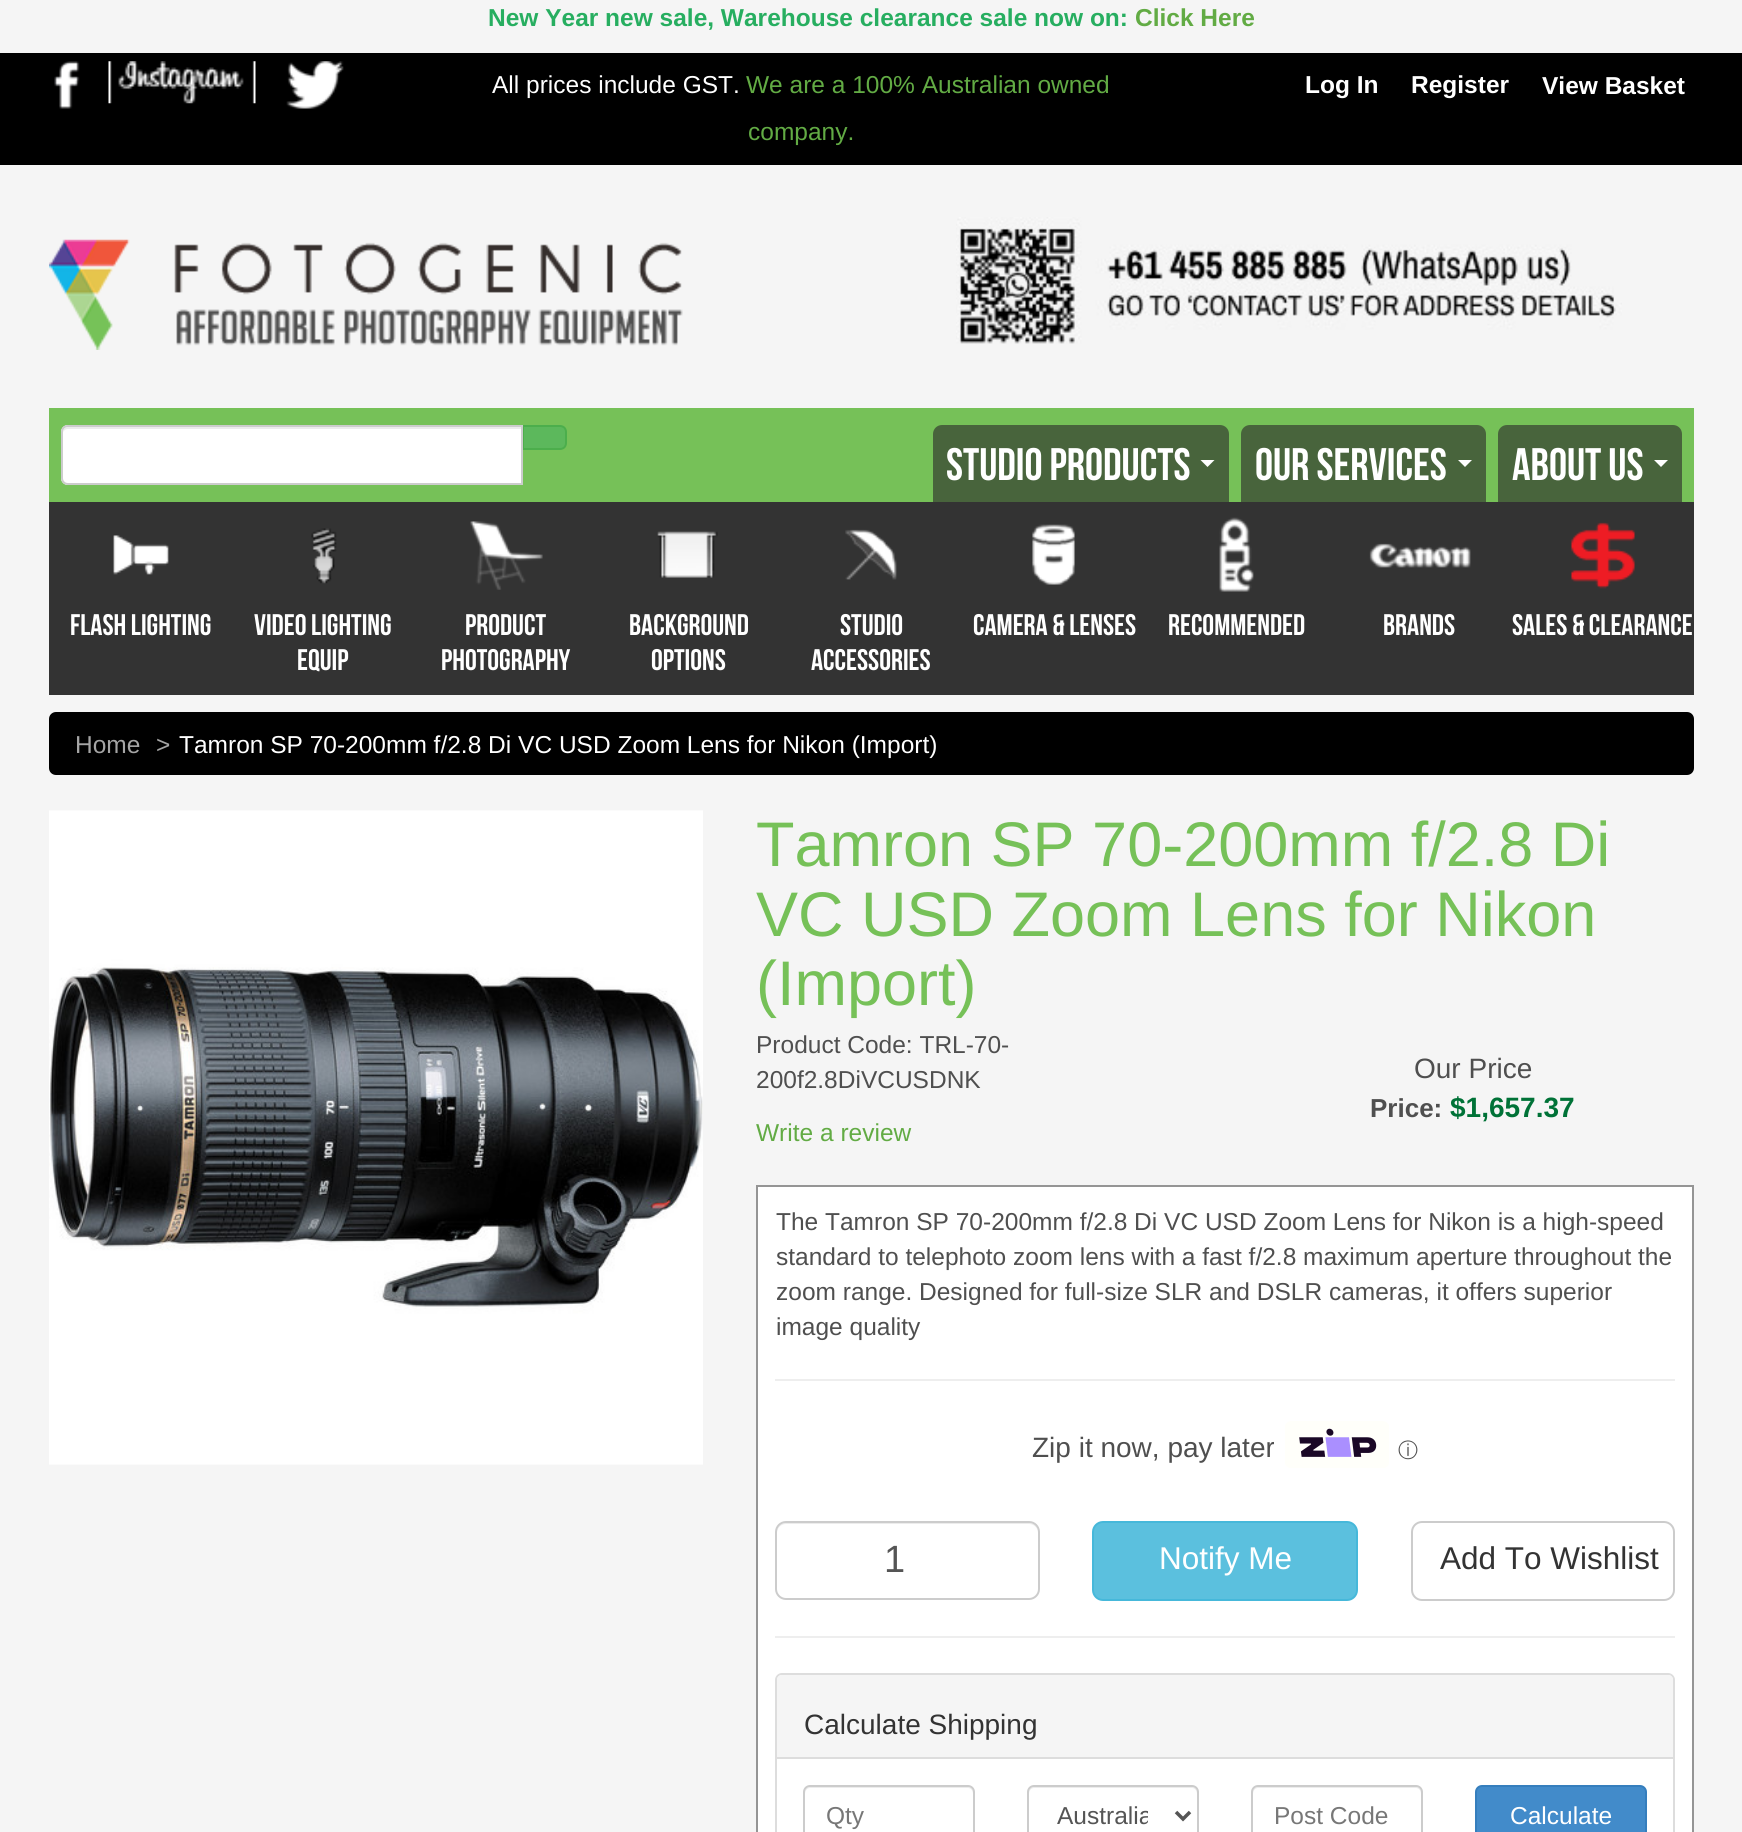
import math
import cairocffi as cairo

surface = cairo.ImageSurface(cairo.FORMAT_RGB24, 1742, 1832)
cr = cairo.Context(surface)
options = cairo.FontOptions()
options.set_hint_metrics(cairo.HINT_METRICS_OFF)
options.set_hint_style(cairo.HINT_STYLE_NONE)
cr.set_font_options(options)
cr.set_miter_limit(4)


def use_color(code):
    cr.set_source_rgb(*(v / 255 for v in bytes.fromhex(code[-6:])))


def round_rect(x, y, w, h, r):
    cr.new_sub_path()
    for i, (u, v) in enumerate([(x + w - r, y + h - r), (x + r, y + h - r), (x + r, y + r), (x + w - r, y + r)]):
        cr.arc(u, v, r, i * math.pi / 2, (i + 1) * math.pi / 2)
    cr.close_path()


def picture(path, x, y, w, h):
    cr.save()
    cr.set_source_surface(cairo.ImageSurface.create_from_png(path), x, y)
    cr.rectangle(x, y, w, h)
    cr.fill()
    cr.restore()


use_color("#f5f5f5")
cr.paint()
cr.select_font_face("Liberation Sans", cairo.FONT_SLANT_NORMAL, cairo.FONT_WEIGHT_BOLD)
cr.set_font_size(24.5)
use_color("#27ae60")
cr.move_to(488, 26)
cr.show_text("New Year new sale, Warehouse clearance sale now on:")
use_color("#62ab44")
cr.move_to(1135, 26)
cr.show_text("Click Here")
use_color("#000000")
cr.rectangle(0, 53, 1742, 112)
cr.fill()
picture("img1.png", 54, 61, 26, 48)
picture("img2.png", 108, 61, 148, 43)
picture("img3.png", 286, 61, 58, 48)
cr.select_font_face("Liberation Sans")
use_color("#ffffff")
cr.move_to(492, 93)
cr.show_text("All prices include GST.")
use_color("#62ab44")
cr.move_to(746, 93)
cr.show_text("We are a 100% Australian owned")
cr.move_to(748, 140)
cr.show_text("company.")
cr.select_font_face("Liberation Sans", cairo.FONT_SLANT_NORMAL, cairo.FONT_WEIGHT_BOLD)
use_color("#ffffff")
cr.move_to(1305, 93)
cr.show_text("Log In")
cr.move_to(1411, 93)
cr.show_text("Register")
cr.move_to(1542, 94)
cr.show_text("View Basket")
picture("img4.png", 49, 239, 634, 111)
picture("img5.png", 956, 217, 666, 127)
use_color("#76c158")
cr.rectangle(49, 408, 1645, 94)
cr.fill()
use_color("#5cb85c")
cr.new_path()
cr.move_to(523, 426)
cr.line_to(560, 426)
cr.curve_to(563.5, 426, 566, 428.5, 566, 432)
cr.line_to(566, 443)
cr.curve_to(566, 446.5, 563.5, 449, 560, 449)
cr.line_to(523, 449)
cr.close_path()
cr.fill_preserve()
use_color("#4cae4c")
cr.stroke()
use_color("#ffffff")
cr.new_path()
cr.move_to(68, 425)
cr.line_to(523, 425)
cr.line_to(523, 485)
cr.line_to(68, 485)
cr.curve_to(64, 485, 61, 482, 61, 478)
cr.line_to(61, 432)
cr.curve_to(61, 428, 64, 425, 68, 425)
cr.close_path()
cr.fill()
use_color("#ececec")
cr.new_path()
cr.move_to(68, 429)
cr.line_to(522, 429)
cr.line_to(522, 427)
cr.line_to(68, 427)
cr.curve_to(64, 427, 63, 431, 63, 434)
cr.curve_to(63, 431, 65, 429, 68, 429)
cr.close_path()
cr.fill()
cr.new_path()
cr.move_to(68, 426)
cr.line_to(522, 426)
cr.line_to(522, 484)
cr.line_to(68, 484)
cr.curve_to(64.5, 484, 62, 481.5, 62, 478)
cr.line_to(62, 432)
cr.curve_to(62, 428.5, 64.5, 426, 68, 426)
cr.close_path()
use_color("#cccccc")
cr.stroke()
use_color("#48643c")
cr.new_path()
cr.move_to(942, 425)
cr.line_to(1220, 425)
cr.curve_to(1225, 425, 1229, 429, 1229, 434)
cr.line_to(1229, 502)
cr.line_to(933, 502)
cr.line_to(933, 434)
cr.curve_to(933, 429, 937, 425, 942, 425)
cr.close_path()
cr.fill()
cr.select_font_face("Bebas Neue")
cr.set_font_size(45.5)
use_color("#ffffff")
cr.move_to(946, 480)
cr.show_text("STUDIO PRODUCTS")
cr.new_path()
cr.move_to(1200.5, 460)
cr.line_to(1214.5, 460)
cr.line_to(1207.5, 467)
cr.close_path()
cr.fill()
use_color("#333333")
cr.rectangle(49, 502, 1645, 193)
cr.fill()
picture("img6.png", 113, 535, 56, 40)
cr.set_font_size(29.75)
use_color("#ffffff")
cr.move_to(70, 635)
cr.show_text("Flash Lighting")
picture("img7.png", 311, 528, 26, 56)
cr.move_to(254, 635)
cr.show_text("Video Lighting")
cr.move_to(297, 670)
cr.show_text("Equip")
picture("img8.png", 470, 521, 73, 69)
cr.move_to(465, 635)
cr.show_text("Product")
cr.move_to(441, 670)
cr.show_text("Photography")
picture("img9.png", 657, 531, 61, 47)
cr.move_to(629, 635)
cr.show_text("Background")
cr.move_to(651, 670)
cr.show_text("options")
picture("img10.png", 845, 529, 52, 51)
cr.move_to(840, 635)
cr.show_text("Studio")
cr.move_to(811, 670)
cr.show_text("Accessories")
picture("img11.png", 1032, 524, 43, 61)
cr.move_to(973, 635)
cr.show_text("Camera & lenses")
picture("img12.png", 1219, 517, 35, 75)
cr.move_to(1168, 635)
cr.show_text("Recommended")
picture("img13.png", 1369, 543, 102, 25)
cr.move_to(1383, 635)
cr.show_text("Brands")
picture("img14.png", 1571, 522, 64, 67)
cr.move_to(1512, 635)
cr.show_text("Sales & clearance")
use_color("#48643c")
cr.new_path()
cr.move_to(1250, 425)
cr.line_to(1477, 425)
cr.curve_to(1482, 425, 1486, 429, 1486, 434)
cr.line_to(1486, 502)
cr.line_to(1241, 502)
cr.line_to(1241, 434)
cr.curve_to(1241, 429, 1245, 425, 1250, 425)
cr.close_path()
cr.fill()
cr.set_font_size(45.5)
use_color("#ffffff")
cr.move_to(1255, 480)
cr.show_text("OUR SERVICES")
cr.new_path()
cr.move_to(1458, 460)
cr.line_to(1472, 460)
cr.line_to(1465, 467)
cr.close_path()
cr.fill()
use_color("#48643c")
cr.new_path()
cr.move_to(1507, 425)
cr.line_to(1673, 425)
cr.curve_to(1678, 425, 1682, 429, 1682, 434)
cr.line_to(1682, 502)
cr.line_to(1498, 502)
cr.line_to(1498, 434)
cr.curve_to(1498, 429, 1502, 425, 1507, 425)
cr.close_path()
cr.fill()
use_color("#ffffff")
cr.move_to(1512, 480)
cr.show_text("ABOUT US")
cr.new_path()
cr.move_to(1654, 460)
cr.line_to(1668, 460)
cr.line_to(1661, 467)
cr.close_path()
cr.fill()
use_color("#000000")
round_rect(49, 712, 1645, 63, 7)
cr.fill()
cr.select_font_face("Liberation Sans")
cr.set_font_size(24.5)
use_color("#a5a5a5")
cr.move_to(75, 753)
cr.show_text("Home")
cr.move_to(156, 753)
cr.show_text(">")
use_color("#ffffff")
cr.move_to(179, 753)
cr.show_text("Tamron SP 70-200mm f/2.8 Di VC USD Zoom Lens for Nikon (Import)")
picture("img15.png", 49, 810, 654, 655)
cr.set_font_size(63)
use_color("#76c158")
cr.move_to(756, 866)
cr.show_text("Tamron SP 70-200mm f/2.8 Di")
cr.move_to(756, 936)
cr.show_text("VC USD Zoom Lens for Nikon")
cr.move_to(756, 1005)
cr.show_text("(Import)")
cr.set_font_size(24.5)
use_color("#4f4f4f")
cr.move_to(756, 1053)
cr.show_text("Product Code: TRL-70-")
cr.move_to(756, 1088)
cr.show_text("200f2.8DiVCUSDNK")
use_color("#62ab44")
cr.move_to(756, 1141)
cr.show_text("Write a review")
cr.set_font_size(28)
use_color("#4f4f4f")
cr.move_to(1414, 1078)
cr.show_text("Our Price")
cr.select_font_face("Liberation Sans", cairo.FONT_SLANT_NORMAL, cairo.FONT_WEIGHT_BOLD)
cr.set_font_size(26)
cr.move_to(1370, 1117)
cr.show_text("Price:")
cr.set_font_size(28)
use_color("#007237")
cr.move_to(1450, 1117)
cr.show_text("$1,657.37")
use_color("#ffffff")
cr.rectangle(757, 1186, 936, 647)
cr.fill_preserve()
use_color("#959595")
cr.stroke()
cr.select_font_face("Liberation Sans")
cr.set_font_size(24.5)
use_color("#4f4f4f")
cr.move_to(776, 1230)
cr.show_text("The Tamron SP 70-200mm f/2.8 Di VC USD Zoom Lens for Nikon is a high-speed")
cr.move_to(776, 1265)
cr.show_text("standard to telephoto zoom lens with a fast f/2.8 maximum aperture throughout the")
cr.move_to(776, 1300)
cr.show_text("zoom range. Designed for full-size SLR and DSLR cameras, it offers superior")
cr.move_to(776, 1335)
cr.show_text("image quality")
use_color("#eeeeee")
cr.rectangle(775, 1379, 900, 2)
cr.fill()
cr.set_font_size(28)
use_color("#4f4f4f")
cr.move_to(1032, 1457)
cr.show_text("Zip it now, pay later")
picture("img16.png", 1285, 1421, 104, 47)
cr.select_font_face("WenQuanYi Zen Hei Medium")
cr.set_font_size(20)
cr.move_to(1398, 1457)
cr.show_text("ⓘ")
use_color("#ececec")
cr.new_path()
cr.move_to(786, 1524)
cr.line_to(1029, 1524)
cr.curve_to(1034, 1524, 1038, 1528, 1038, 1533)
cr.line_to(1038, 1532)
cr.curve_to(1038, 1527, 1034, 1523, 1029, 1523)
cr.line_to(786, 1523)
cr.curve_to(781, 1523, 777, 1527, 777, 1532)
cr.line_to(777, 1533)
cr.curve_to(777, 1528, 781, 1524, 786, 1524)
cr.close_path()
cr.fill()
round_rect(776, 1522, 263, 77, 10)
use_color("#cccccc")
cr.stroke()
cr.select_font_face("Liberation Sans")
cr.set_font_size(38)
use_color("#555555")
cr.move_to(884, 1572)
cr.show_text("1")
use_color("#5bc0de")
round_rect(1093, 1522, 264, 78, 10)
cr.fill_preserve()
use_color("#46b8da")
cr.stroke()
cr.set_font_size(31.5)
use_color("#ffffff")
cr.move_to(1159, 1569)
cr.show_text("Notify Me")
round_rect(1412, 1522, 262, 78, 10)
use_color("#cccccc")
cr.stroke()
use_color("#333333")
cr.move_to(1440, 1569)
cr.show_text("Add To Wishlist")
use_color("#eeeeee")
cr.rectangle(775, 1636, 900, 2)
cr.fill()
round_rect(776, 1674, 898, 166, 6)
use_color("#dddddd")
cr.stroke()
use_color("#f5f5f5")
cr.new_path()
cr.move_to(782, 1675)
cr.line_to(1668, 1675)
cr.curve_to(1671, 1675, 1673, 1677, 1673, 1680)
cr.line_to(1673, 1759)
cr.line_to(777, 1759)
cr.line_to(777, 1680)
cr.curve_to(777, 1677, 779, 1675, 782, 1675)
cr.close_path()
cr.fill()
use_color("#dddddd")
cr.rectangle(777, 1757, 896, 2)
cr.fill()
cr.set_font_size(28)
use_color("#333333")
cr.move_to(804, 1734)
cr.show_text("Calculate Shipping")
use_color("#ececec")
cr.new_path()
cr.move_to(810, 1788)
cr.line_to(968, 1788)
cr.curve_to(971, 1788, 973, 1791, 973, 1794)
cr.line_to(973, 1792)
cr.curve_to(973, 1789, 971, 1787, 968, 1787)
cr.line_to(810, 1787)
cr.curve_to(807, 1787, 805, 1789, 805, 1792)
cr.line_to(805, 1794)
cr.curve_to(805, 1791, 807, 1788, 810, 1788)
cr.close_path()
cr.fill()
round_rect(804, 1786, 170, 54, 6)
use_color("#cccccc")
cr.stroke()
cr.set_font_size(24.5)
use_color("#777777")
cr.move_to(826, 1824)
cr.show_text("Qty")
use_color("#ececec")
cr.new_path()
cr.move_to(1034, 1788)
cr.line_to(1192, 1788)
cr.curve_to(1195, 1788, 1197, 1791, 1197, 1794)
cr.line_to(1197, 1792)
cr.curve_to(1197, 1789, 1195, 1787, 1192, 1787)
cr.line_to(1034, 1787)
cr.curve_to(1031, 1787, 1029, 1789, 1029, 1792)
cr.line_to(1029, 1794)
cr.curve_to(1029, 1791, 1031, 1788, 1034, 1788)
cr.close_path()
cr.fill()
round_rect(1028, 1786, 170, 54, 6)
use_color("#cccccc")
cr.stroke()
cr.new_path()
cr.move_to(1176, 1812)
cr.line_to(1183, 1819)
cr.line_to(1190, 1812)
use_color("#555555")
cr.set_line_width(3.5)
cr.stroke()
cr.save()
cr.rectangle(1057, 1799, 91, 32)
cr.clip()
cr.move_to(1057, 1824)
cr.show_text("Australia")
cr.restore()
use_color("#ececec")
cr.new_path()
cr.move_to(1258, 1788)
cr.line_to(1416, 1788)
cr.curve_to(1419, 1788, 1421, 1791, 1421, 1794)
cr.line_to(1421, 1792)
cr.curve_to(1421, 1789, 1419, 1787, 1416, 1787)
cr.line_to(1258, 1787)
cr.curve_to(1255, 1787, 1253, 1789, 1253, 1792)
cr.line_to(1253, 1794)
cr.curve_to(1253, 1791, 1255, 1788, 1258, 1788)
cr.close_path()
cr.fill()
round_rect(1252, 1786, 170, 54, 6)
use_color("#cccccc")
cr.set_line_width(2)
cr.stroke()
use_color("#777777")
cr.move_to(1274, 1824)
cr.show_text("Post Code")
use_color("#428bca")
round_rect(1476, 1786, 170, 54, 6)
cr.fill_preserve()
use_color("#357ebd")
cr.stroke()
use_color("#ffffff")
cr.move_to(1510, 1824)
cr.show_text("Calculate")
surface.write_to_png("result.png")
